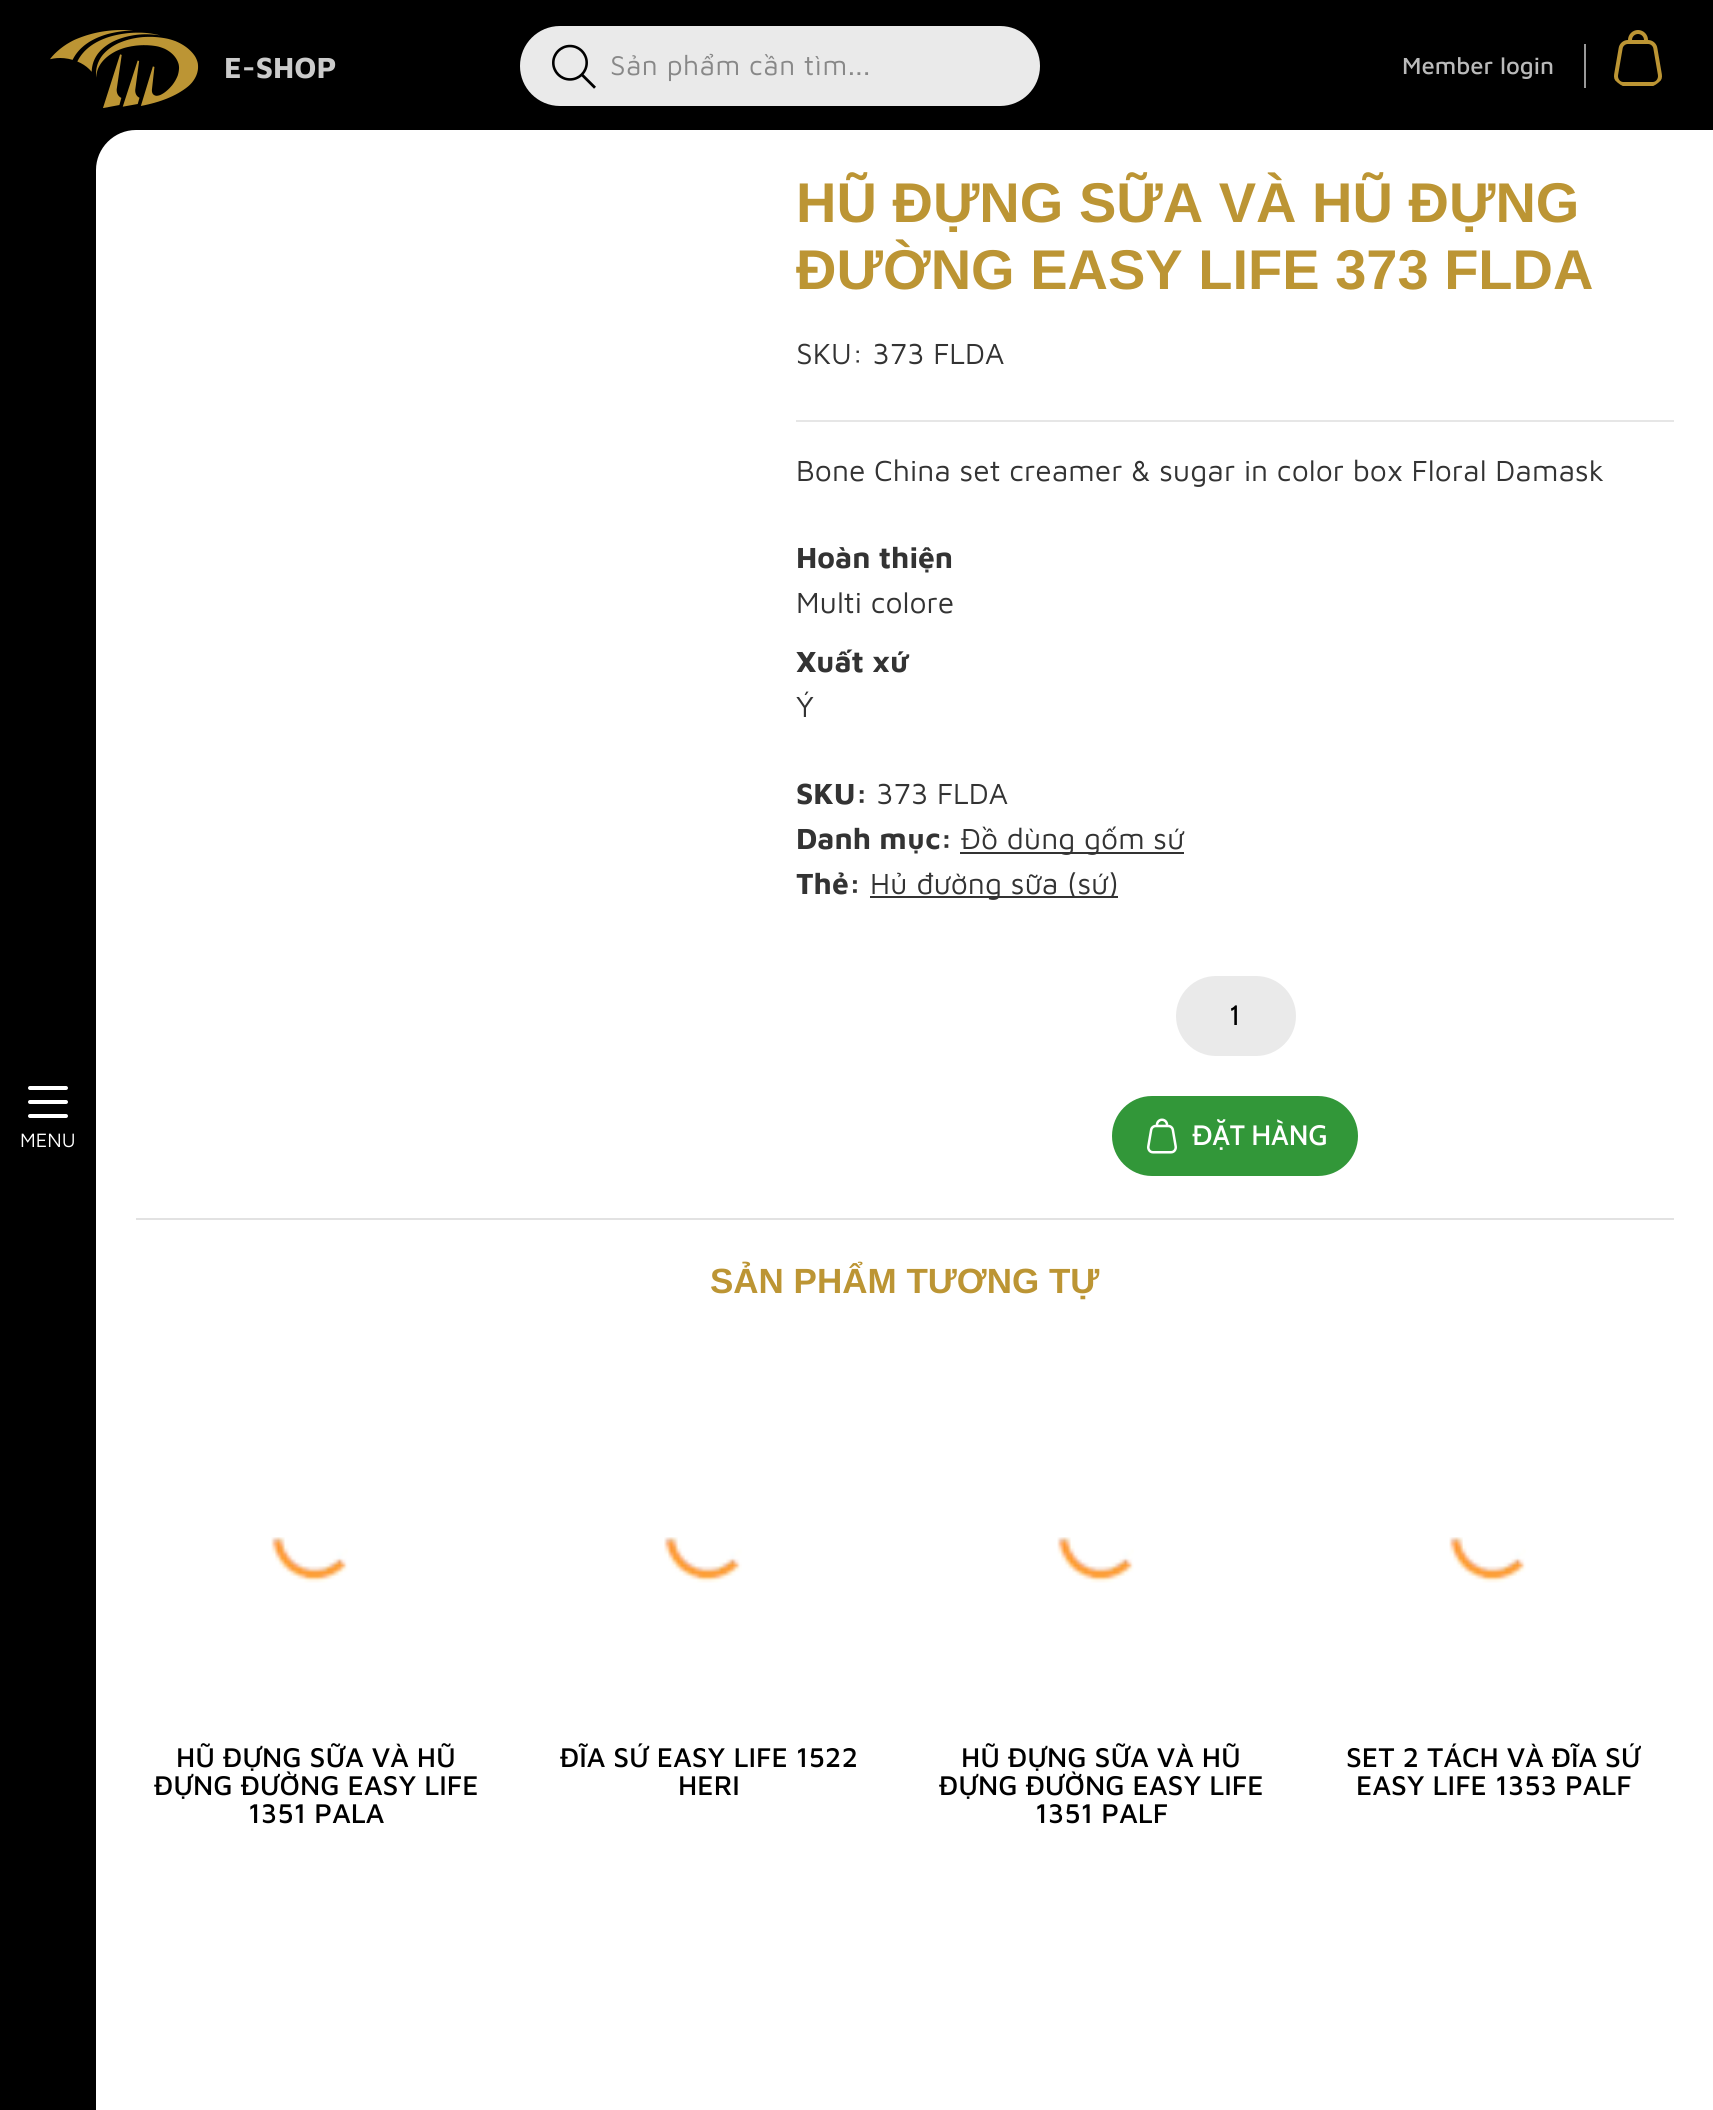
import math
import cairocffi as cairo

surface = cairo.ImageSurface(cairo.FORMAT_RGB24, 1713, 2110)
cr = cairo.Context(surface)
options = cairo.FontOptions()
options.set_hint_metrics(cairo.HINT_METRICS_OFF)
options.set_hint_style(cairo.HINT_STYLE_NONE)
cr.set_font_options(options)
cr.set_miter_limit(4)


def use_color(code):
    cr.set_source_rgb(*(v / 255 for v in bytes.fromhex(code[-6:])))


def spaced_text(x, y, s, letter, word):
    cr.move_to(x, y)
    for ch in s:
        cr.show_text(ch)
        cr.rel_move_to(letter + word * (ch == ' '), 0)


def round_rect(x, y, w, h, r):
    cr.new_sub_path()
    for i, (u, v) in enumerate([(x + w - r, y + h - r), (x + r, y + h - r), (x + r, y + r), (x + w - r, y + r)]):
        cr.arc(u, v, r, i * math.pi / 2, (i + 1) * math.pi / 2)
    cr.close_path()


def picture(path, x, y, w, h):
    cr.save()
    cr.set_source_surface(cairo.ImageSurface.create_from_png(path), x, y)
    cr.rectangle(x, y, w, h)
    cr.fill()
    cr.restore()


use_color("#000000")
cr.paint()
picture("img1.png", 50, 30, 149, 78)
cr.select_font_face("Maven Pro", cairo.FONT_SLANT_NORMAL, cairo.FONT_WEIGHT_BOLD)
cr.set_font_size(30)
use_color("#cbcbcb")
cr.move_to(224, 78)
cr.show_text("E-SHOP")
use_color("#eaeaea")
round_rect(520, 26, 520, 80, 40)
cr.fill()
picture("img2.png", 552, 44, 44, 45)
cr.select_font_face("Maven Pro")
cr.set_font_size(28)
use_color("#888888")
spaced_text(610, 75, "Sản phẩm cần tìm...", 0.4, 0)
cr.select_font_face("Maven Pro Medium")
cr.set_font_size(24)
use_color("#bababa")
cr.move_to(1402, 74)
cr.show_text("Member login")
use_color("#999999")
cr.rectangle(1584, 44, 2, 44)
cr.fill()
picture("img3.png", 1614, 30, 48, 56)
use_color("#ffffff")
round_rect(28, 1114, 40, 4, 2)
cr.fill()
round_rect(28, 1086, 40, 4, 2)
cr.fill()
round_rect(28, 1100, 40, 4, 2)
cr.fill()
cr.select_font_face("Maven Pro")
cr.set_font_size(20)
cr.move_to(20, 1147)
cr.show_text("MENU")
cr.new_path()
cr.move_to(136, 130)
cr.line_to(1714, 130)
cr.line_to(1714, 2110)
cr.line_to(96, 2110)
cr.line_to(96, 170)
cr.curve_to(96, 148, 114, 130, 136, 130)
cr.close_path()
cr.fill()
cr.select_font_face("Liberation Sans", cairo.FONT_SLANT_NORMAL, cairo.FONT_WEIGHT_BOLD)
cr.set_font_size(56)
use_color("#bc9534")
cr.move_to(796, 222)
cr.show_text("HŨ ĐỰNG SỮA VÀ HŨ ĐỰNG")
cr.move_to(796, 289)
cr.show_text("ĐƯỜNG EASY LIFE 373 FLDA")
cr.select_font_face("Maven Pro")
cr.set_font_size(30)
use_color("#333333")
cr.move_to(796, 364)
cr.show_text("SKU: 373 FLDA")
use_color("#e6e6e6")
cr.rectangle(796, 420, 878, 2)
cr.fill()
use_color("#333333")
cr.move_to(796, 481)
cr.show_text("Bone China set creamer & sugar in color box Floral Damask")
cr.select_font_face("Maven Pro", cairo.FONT_SLANT_NORMAL, cairo.FONT_WEIGHT_BOLD)
cr.move_to(796, 568)
cr.show_text("Hoàn thiện")
cr.select_font_face("Maven Pro")
cr.move_to(796, 613)
cr.show_text("Multi colore")
cr.select_font_face("Maven Pro", cairo.FONT_SLANT_NORMAL, cairo.FONT_WEIGHT_BOLD)
cr.move_to(796, 672)
cr.show_text("Xuất xứ")
cr.select_font_face("Maven Pro")
cr.move_to(796, 717)
cr.show_text("Ý")
cr.select_font_face("Maven Pro", cairo.FONT_SLANT_NORMAL, cairo.FONT_WEIGHT_BOLD)
cr.move_to(796, 804)
cr.show_text("SKU:")
cr.select_font_face("Maven Pro")
cr.move_to(876, 804)
cr.show_text("373 FLDA")
cr.select_font_face("Maven Pro", cairo.FONT_SLANT_NORMAL, cairo.FONT_WEIGHT_BOLD)
cr.move_to(796, 849)
cr.show_text("Danh mục:")
cr.rectangle(960, 852, 224, 2)
cr.fill()
cr.select_font_face("Maven Pro")
cr.move_to(961, 849)
cr.show_text("Đồ dùng gốm sứ")
cr.select_font_face("Maven Pro", cairo.FONT_SLANT_NORMAL, cairo.FONT_WEIGHT_BOLD)
cr.move_to(796, 894)
cr.show_text("Thẻ:")
cr.rectangle(870, 896, 248, 2)
cr.fill()
cr.select_font_face("Maven Pro")
cr.move_to(870, 894)
cr.show_text("Hủ đường sữa (sứ)")
use_color("#eaeaea")
round_rect(1176, 976, 120, 80, 40)
cr.fill()
cr.select_font_face("Cabin")
cr.set_font_size(28)
use_color("#000000")
cr.move_to(1230, 1025)
cr.show_text("1")
use_color("#329739")
round_rect(1112, 1096, 246, 80, 40)
cr.fill()
picture("img4.png", 1147, 1118, 30, 36)
cr.select_font_face("Cabin Medium")
use_color("#ffffff")
cr.move_to(1192, 1145)
cr.show_text("ĐẶT HÀNG")
use_color("#e2e2e2")
cr.rectangle(136, 1218, 1538, 2)
cr.fill()
cr.select_font_face("Liberation Sans", cairo.FONT_SLANT_NORMAL, cairo.FONT_WEIGHT_BOLD)
cr.set_font_size(35)
use_color("#bc9534")
cr.move_to(710, 1293)
cr.show_text("SẢN PHẨM TƯƠNG TỰ")
picture("img5.png", 271, 1537, 77, 46)
cr.select_font_face("Maven Pro Medium")
cr.set_font_size(28)
use_color("#000000")
cr.move_to(176, 1767)
cr.show_text("HŨ ĐỰNG SỮA VÀ HŨ")
cr.move_to(154, 1795)
cr.show_text("ĐỰNG ĐƯỜNG EASY LIFE")
cr.move_to(248, 1823)
cr.show_text("1351 PALA")
picture("img6.png", 664, 1537, 78, 46)
cr.move_to(560, 1767)
cr.show_text("ĐĨA SỨ EASY LIFE 1522")
cr.move_to(678, 1795)
cr.show_text("HERI")
picture("img5.png", 1057, 1537, 77, 46)
cr.move_to(961, 1767)
cr.show_text("HŨ ĐỰNG SỮA VÀ HŨ")
cr.move_to(939, 1795)
cr.show_text("ĐỰNG ĐƯỜNG EASY LIFE")
cr.move_to(1035, 1823)
cr.show_text("1351 PALF")
picture("img7.png", 1449, 1537, 77, 46)
cr.move_to(1346, 1767)
cr.show_text("SET 2 TÁCH VÀ ĐĨA SỨ")
cr.move_to(1356, 1795)
cr.show_text("EASY LIFE 1353 PALF")
surface.write_to_png("result.png")
